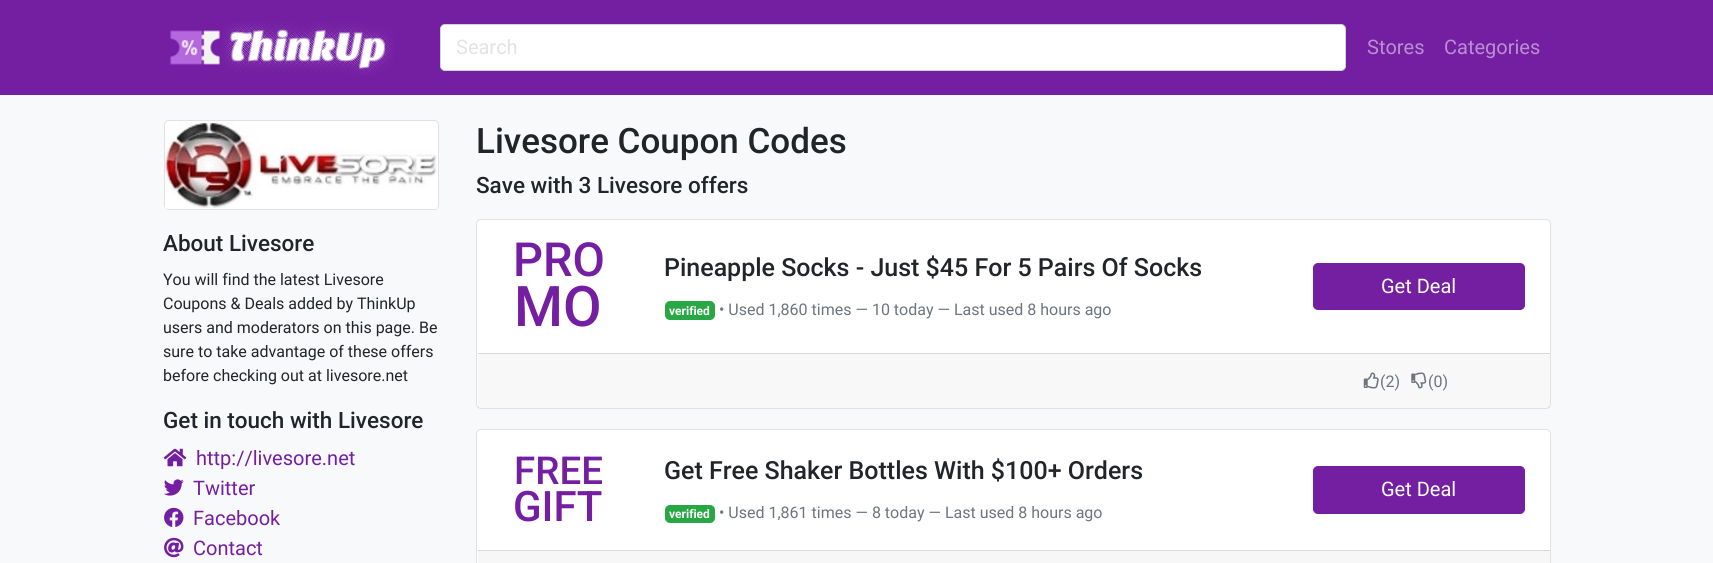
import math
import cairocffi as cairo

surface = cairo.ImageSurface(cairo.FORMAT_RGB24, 1713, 563)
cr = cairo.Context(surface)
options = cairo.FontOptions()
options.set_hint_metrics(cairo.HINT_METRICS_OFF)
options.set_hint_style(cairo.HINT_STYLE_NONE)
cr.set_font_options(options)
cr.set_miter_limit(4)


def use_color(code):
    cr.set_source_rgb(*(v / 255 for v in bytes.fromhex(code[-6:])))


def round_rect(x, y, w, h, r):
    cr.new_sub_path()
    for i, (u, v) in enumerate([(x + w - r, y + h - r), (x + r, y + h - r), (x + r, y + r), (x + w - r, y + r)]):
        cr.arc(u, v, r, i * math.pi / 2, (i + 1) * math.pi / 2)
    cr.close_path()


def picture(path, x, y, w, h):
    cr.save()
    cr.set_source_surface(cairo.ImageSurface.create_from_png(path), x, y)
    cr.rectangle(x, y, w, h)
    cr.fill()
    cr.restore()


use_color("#f8f9fa")
cr.paint()
use_color("#741fa2")
cr.rectangle(0, 0, 1713, 95)
cr.fill()
picture("img1.png", 170, 29, 52, 41)
picture("img2.png", 222, 22, 172, 54)
use_color("#ffffff")
round_rect(440.5, 24.5, 905, 46, 4.5)
cr.fill_preserve()
use_color("#ced4da")
cr.set_line_width(1)
cr.stroke()
cr.select_font_face("Roboto")
cr.set_font_size(20)
use_color("#e2e3e5")
cr.move_to(456, 54)
cr.show_text("Search")
use_color("#ba8fd1")
cr.move_to(1367, 54)
cr.show_text("Stores")
cr.move_to(1444, 54)
cr.show_text("Categories")
use_color("#ffffff")
round_rect(164, 120, 275, 90, 5)
cr.fill()
round_rect(164.5, 120.5, 274, 89, 4.5)
cr.set_source_rgba(0, 0, 0, 0.12)
cr.stroke()
picture("img3.png", 165, 121, 273, 88)
cr.select_font_face("Roboto Medium")
cr.set_font_size(22.5)
use_color("#212529")
cr.move_to(163, 251)
cr.show_text("About Livesore")
cr.select_font_face("Roboto")
cr.set_font_size(16)
cr.move_to(163, 285)
cr.show_text("You will find the latest Livesore")
cr.move_to(163, 309)
cr.show_text("Coupons & Deals added by ThinkUp")
cr.move_to(163, 333)
cr.show_text("users and moderators on this page. Be")
cr.move_to(163, 357)
cr.show_text("sure to take advantage of these offers")
cr.move_to(163, 381)
cr.show_text("before checking out at livesore.net")
cr.select_font_face("Roboto Medium")
cr.set_font_size(22.5)
cr.move_to(163, 428)
cr.show_text("Get in touch with Livesore")
picture("img4.png", 163, 448, 24, 19)
cr.select_font_face("Roboto")
cr.set_font_size(20)
use_color("#741fa2")
cr.move_to(196, 465)
cr.show_text("http://livesore.net")
picture("img5.png", 164, 479, 20, 17)
cr.move_to(193, 495)
cr.show_text("Twitter")
picture("img6.png", 164, 507, 20, 20)
cr.move_to(193, 525)
cr.show_text("Facebook")
picture("img7.png", 164, 537, 20, 21)
cr.move_to(193, 555)
cr.show_text("Contact")
cr.select_font_face("Roboto Medium")
cr.set_font_size(35)
use_color("#212529")
cr.move_to(476, 153)
cr.show_text("Livesore Coupon Codes")
cr.set_font_size(22.5)
cr.move_to(476, 193)
cr.show_text("Save with 3 Livesore offers")
use_color("#ffffff")
round_rect(476, 219, 1075, 190, 5)
cr.fill()
round_rect(476.5, 219.5, 1074, 189, 4.5)
cr.set_source_rgba(0, 0, 0, 0.12)
cr.stroke()
cr.set_font_size(47)
use_color("#741fa2")
cr.move_to(513, 276)
cr.show_text("PRO")
cr.set_font_size(56)
cr.move_to(514, 326)
cr.show_text("MO")
cr.set_font_size(25)
use_color("#212529")
cr.move_to(664, 276)
cr.show_text("Pineapple Socks - Just $45 For 5 Pairs Of Socks")
use_color("#28a745")
round_rect(665, 301, 50, 19, 5)
cr.fill()
cr.select_font_face("Roboto", cairo.FONT_SLANT_NORMAL, cairo.FONT_WEIGHT_BOLD)
cr.set_font_size(12)
use_color("#ffffff")
cr.move_to(669, 315)
cr.show_text("verified")
cr.select_font_face("Roboto")
cr.set_font_size(16)
use_color("#6c757d")
cr.move_to(719, 315)
cr.show_text("• Used 1,860 times — 10 today — Last used 8 hours ago")
use_color("#741fa2")
round_rect(1313.5, 263.5, 211, 46, 4.5)
cr.fill_preserve()
cr.stroke()
cr.set_font_size(20)
use_color("#ffffff")
cr.move_to(1381, 293)
cr.show_text("Get Deal")
cr.set_source_rgba(0, 0, 0, 0.03)
cr.rectangle(478, 354, 1072, 54)
cr.fill()
use_color("#d8d8d8")
cr.rectangle(478, 353, 1072, 1)
cr.fill()
picture("img8.png", 1363, 372, 16, 17)
cr.set_font_size(16)
use_color("#6c757d")
cr.move_to(1380, 387)
cr.show_text("(2)")
picture("img9.png", 1411, 372, 16, 17)
cr.move_to(1428, 387)
cr.show_text("(0)")
use_color("#ffffff")
round_rect(476, 429, 1075, 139, 5)
cr.fill()
round_rect(476.5, 429.5, 1074, 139, 4.5)
cr.set_source_rgba(0, 0, 0, 0.12)
cr.stroke()
cr.select_font_face("Roboto Medium")
cr.set_font_size(38.5)
use_color("#741fa2")
cr.move_to(514, 484)
cr.show_text("FREE")
cr.set_font_size(42)
cr.move_to(513, 521)
cr.show_text("GIFT")
cr.set_font_size(25)
use_color("#212529")
cr.move_to(664, 479)
cr.show_text("Get Free Shaker Bottles With $100+ Orders")
use_color("#28a745")
round_rect(665, 505, 50, 18, 5)
cr.fill()
cr.select_font_face("Roboto", cairo.FONT_SLANT_NORMAL, cairo.FONT_WEIGHT_BOLD)
cr.set_font_size(12)
use_color("#ffffff")
cr.move_to(669, 518)
cr.show_text("verified")
cr.select_font_face("Roboto")
cr.set_font_size(16)
use_color("#6c757d")
cr.move_to(719, 518)
cr.show_text("• Used 1,861 times — 8 today — Last used 8 hours ago")
use_color("#741fa2")
round_rect(1313.5, 466.5, 211, 47, 4.5)
cr.fill_preserve()
cr.stroke()
cr.set_font_size(20)
use_color("#ffffff")
cr.move_to(1381, 496)
cr.show_text("Get Deal")
use_color("#f7f7f7")
cr.rectangle(478, 551, 1072, 12)
cr.fill()
use_color("#d8d8d8")
cr.rectangle(478, 550, 1072, 1)
cr.fill()
surface.write_to_png("result.png")
